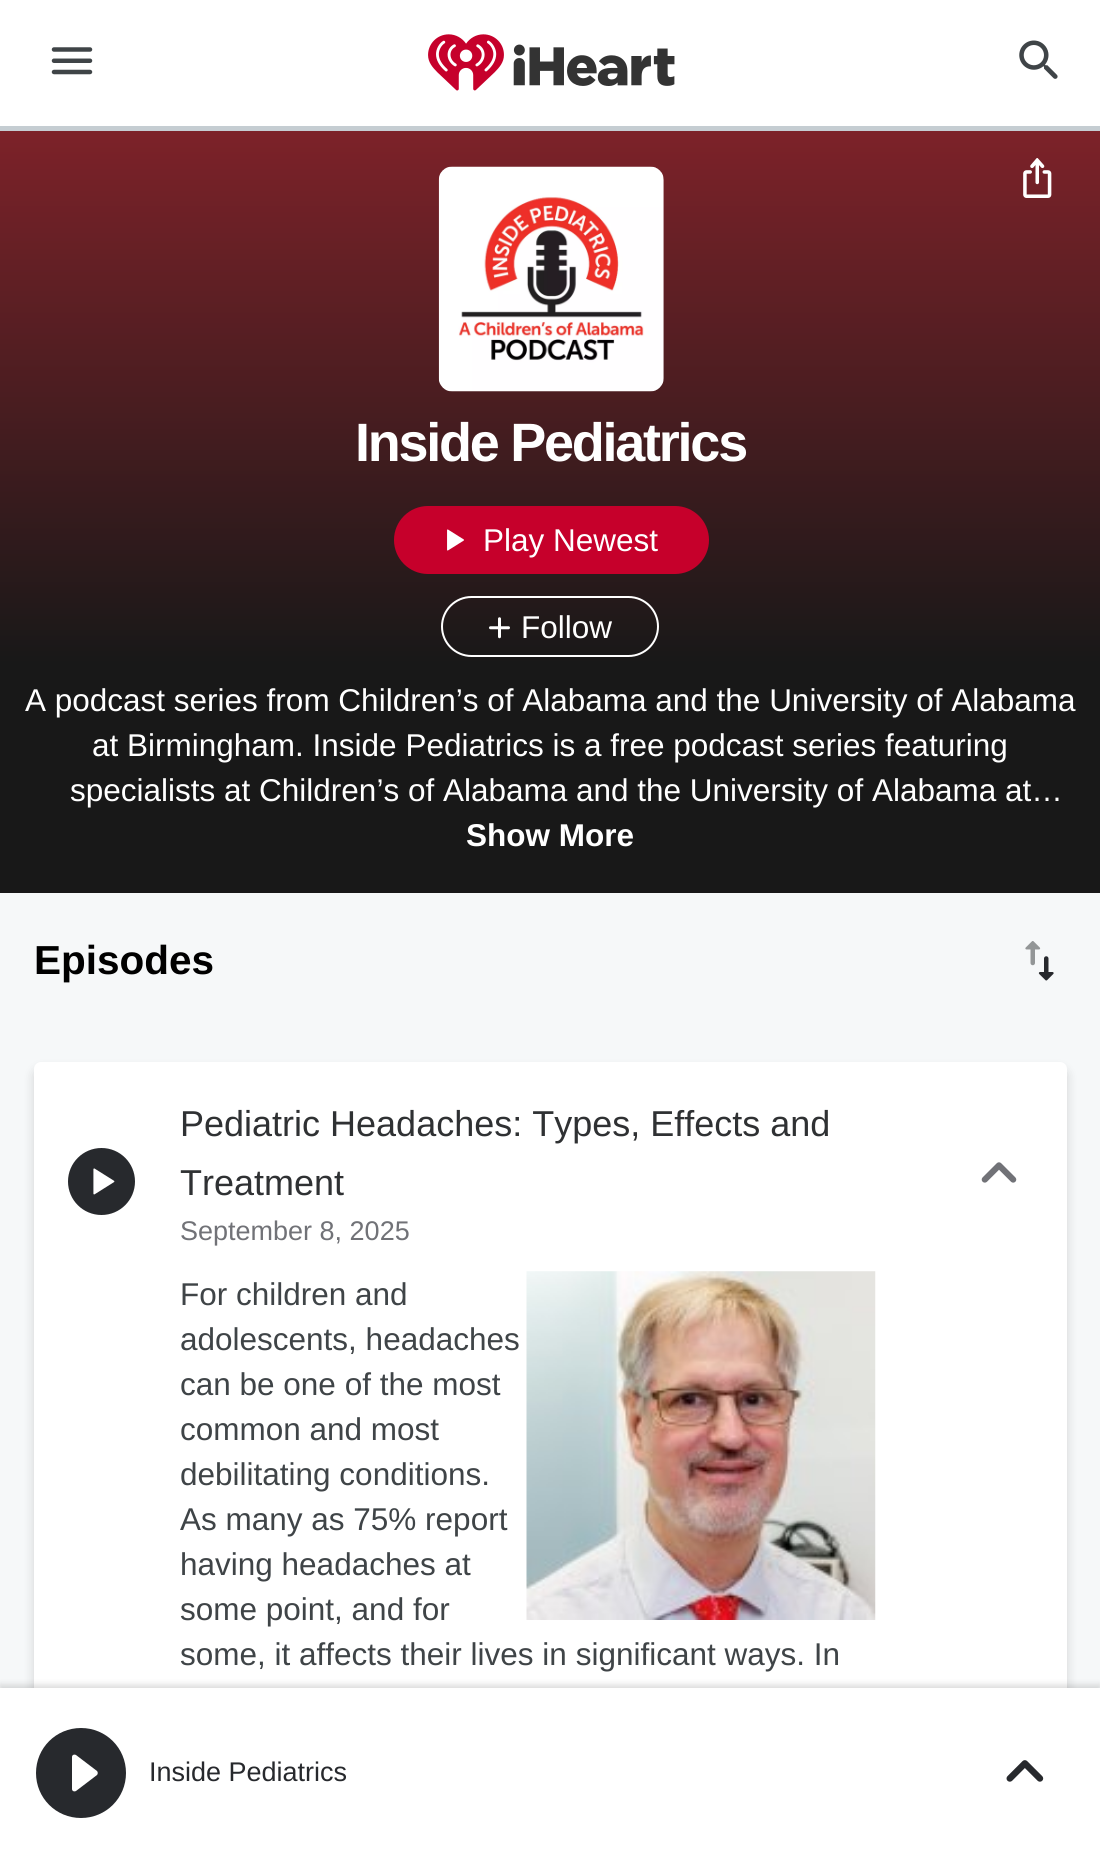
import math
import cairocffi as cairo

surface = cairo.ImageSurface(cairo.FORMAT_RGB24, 1100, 1856)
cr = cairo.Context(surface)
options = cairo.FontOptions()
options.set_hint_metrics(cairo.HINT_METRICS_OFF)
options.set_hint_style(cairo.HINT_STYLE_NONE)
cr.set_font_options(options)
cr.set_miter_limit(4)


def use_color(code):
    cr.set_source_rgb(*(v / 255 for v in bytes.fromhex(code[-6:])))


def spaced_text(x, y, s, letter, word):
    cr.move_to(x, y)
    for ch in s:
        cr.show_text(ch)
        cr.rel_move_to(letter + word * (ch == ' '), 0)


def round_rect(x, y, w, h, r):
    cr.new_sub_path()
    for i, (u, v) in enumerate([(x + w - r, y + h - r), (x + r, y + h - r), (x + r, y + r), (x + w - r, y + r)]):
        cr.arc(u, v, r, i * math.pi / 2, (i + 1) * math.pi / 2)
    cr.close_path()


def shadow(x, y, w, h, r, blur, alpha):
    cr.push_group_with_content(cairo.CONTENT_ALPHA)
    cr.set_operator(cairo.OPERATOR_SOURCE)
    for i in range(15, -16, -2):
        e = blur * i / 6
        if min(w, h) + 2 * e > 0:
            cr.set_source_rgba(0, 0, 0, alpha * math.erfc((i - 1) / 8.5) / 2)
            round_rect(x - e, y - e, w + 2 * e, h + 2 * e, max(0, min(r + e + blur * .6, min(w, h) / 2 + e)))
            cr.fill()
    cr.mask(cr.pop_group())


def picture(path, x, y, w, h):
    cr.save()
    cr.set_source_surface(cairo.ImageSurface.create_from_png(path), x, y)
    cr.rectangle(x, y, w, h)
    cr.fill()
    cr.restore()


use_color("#ffffff")
cr.paint()
use_color("#c5cdd2")
cr.rectangle(0, 126, 1100, 5)
cr.fill()
picture("img1.png", 51, 47, 42, 28)
picture("img2.png", 428, 34, 247, 57)
picture("img3.png", 1019, 40, 39, 39)
gradient = cairo.LinearGradient(550, 130, 550, 893)
gradient.add_color_stop_rgba(0, 0.49, 0.133, 0.161, 1)
gradient.add_color_stop_rgba(0.7, 0.094, 0.094, 0.094, 1)
cr.set_source(gradient)
cr.rectangle(0, 131, 1100, 762)
cr.fill()
picture("img4.png", 438, 166, 226, 226)
cr.select_font_face("Liberation Sans", cairo.FONT_SLANT_NORMAL, cairo.FONT_WEIGHT_BOLD)
cr.set_font_size(54)
use_color("#ffffff")
spaced_text(355, 461, "Inside Pediatrics", -2.25, 0)
use_color("#c6002b")
round_rect(394, 506, 315, 68, 34)
cr.fill()
picture("img5.png", 447, 529, 17, 22)
cr.select_font_face("Liberation Sans")
cr.set_font_size(31.5)
use_color("#ffffff")
cr.move_to(483, 551)
cr.show_text("Play Newest")
picture("img6.png", 1023, 158, 29, 40)
round_rect(442, 597, 216, 59, 29.5)
cr.stroke()
picture("img7.png", 489, 617, 21, 22)
cr.move_to(521, 638)
cr.show_text("Follow")
cr.move_to(25, 711)
cr.show_text("A podcast series from Children’s of Alabama and the University of Alabama")
cr.move_to(92, 756)
cr.show_text("at Birmingham. Inside Pediatrics is a free podcast series featuring")
cr.move_to(70, 801)
cr.show_text("specialists at Children’s of Alabama and the University of Alabama at…")
cr.select_font_face("Liberation Sans", cairo.FONT_SLANT_NORMAL, cairo.FONT_WEIGHT_BOLD)
cr.move_to(466, 846)
cr.show_text("Show More")
use_color("#f6f8f9")
cr.rectangle(0, 893, 1100, 795)
cr.fill()
cr.set_font_size(40.5)
use_color("#000000")
cr.move_to(34, 974)
cr.show_text("Episodes")
picture("img8.png", 1025, 941, 29, 40)
use_color("#000000")
shadow(34, 1069, 1033, 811, 7, 5.5, 0.15)
use_color("#ffffff")
round_rect(34, 1062, 1033, 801, 7)
cr.fill()
use_color("#27292d")
cr.arc(101.5, 1181.5, 32.5, 0, 2 * math.pi)
cr.fill_preserve()
cr.stroke()
picture("img9.png", 93, 1168, 22, 27)
cr.select_font_face("Liberation Sans")
cr.set_font_size(36)
use_color("#2f3133")
cr.move_to(180, 1136)
cr.show_text("Pediatric Headaches: Types, Effects and")
cr.move_to(180, 1195)
cr.show_text("Treatment")
cr.set_font_size(27)
use_color("#717277")
cr.move_to(180, 1240)
cr.show_text("September 8, 2025")
picture("img10.png", 981, 1162, 36, 21)
picture("img11.png", 526, 1271, 350, 349)
cr.set_font_size(31.5)
use_color("#3f4447")
cr.move_to(180, 1305)
cr.show_text("For children and")
cr.move_to(180, 1350)
cr.show_text("adolescents, headaches")
cr.move_to(180, 1395)
cr.show_text("can be one of the most")
cr.move_to(180, 1440)
cr.show_text("common and most")
cr.move_to(180, 1485)
cr.show_text("debilitating conditions.")
cr.move_to(180, 1530)
cr.show_text("As many as 75% report")
cr.move_to(180, 1575)
cr.show_text("having headaches at")
cr.move_to(180, 1620)
cr.show_text("some point, and for")
cr.move_to(180, 1665)
cr.show_text("some, it affects their lives in significant ways. In")
use_color("#000000")
shadow(0, 1685, 1100, 169, 0, 3.5, 0.15)
use_color("#ffffff")
cr.rectangle(0, 1688, 1100, 168)
cr.fill()
use_color("#27292d")
cr.new_path()
cr.move_to(81, 1728)
cr.curve_to(56, 1728, 36, 1748, 36, 1773)
cr.curve_to(36, 1798, 56, 1818, 81, 1818)
cr.curve_to(106, 1818, 126, 1798, 126, 1773)
cr.curve_to(126, 1748, 106, 1728, 81, 1728)
cr.close_path()
cr.move_to(72, 1789)
cr.line_to(72, 1757)
cr.curve_to(72, 1755, 74, 1754, 76, 1755)
cr.line_to(97, 1771)
cr.curve_to(98, 1772, 98, 1774, 97, 1775)
cr.line_to(76, 1791)
cr.curve_to(74, 1792, 72, 1791, 72, 1789)
cr.close_path()
cr.fill()
cr.set_font_size(27)
cr.move_to(149, 1781)
cr.show_text("Inside Pediatrics")
picture("img12.png", 1006, 1760, 38, 22)
surface.write_to_png("result.png")
